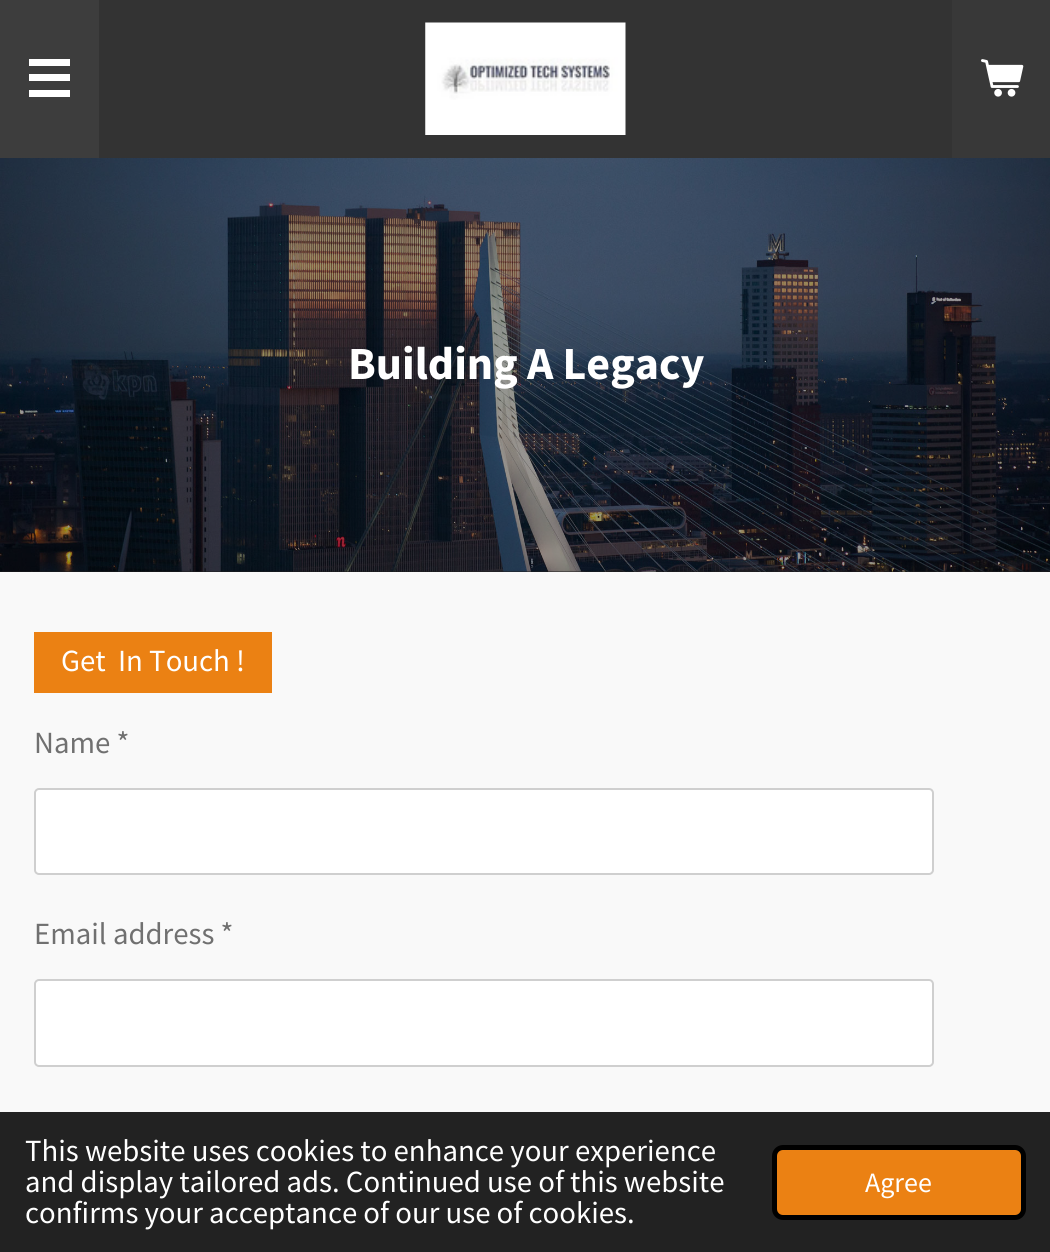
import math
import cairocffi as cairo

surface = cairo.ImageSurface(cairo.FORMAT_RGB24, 1050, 1252)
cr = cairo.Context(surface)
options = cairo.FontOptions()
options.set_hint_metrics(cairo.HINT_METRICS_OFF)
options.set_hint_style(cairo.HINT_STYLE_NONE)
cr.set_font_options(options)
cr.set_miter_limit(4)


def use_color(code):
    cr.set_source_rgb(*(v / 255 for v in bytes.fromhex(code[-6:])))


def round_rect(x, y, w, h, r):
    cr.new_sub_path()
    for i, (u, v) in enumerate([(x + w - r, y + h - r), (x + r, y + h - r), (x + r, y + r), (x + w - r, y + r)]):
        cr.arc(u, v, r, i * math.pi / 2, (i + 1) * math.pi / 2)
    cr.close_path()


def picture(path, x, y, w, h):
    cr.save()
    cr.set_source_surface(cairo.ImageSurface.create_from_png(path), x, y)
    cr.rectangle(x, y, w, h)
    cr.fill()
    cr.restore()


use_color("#1f1f1f")
cr.paint()
use_color("#3d3d3d")
cr.rectangle(0, 0, 99, 158)
cr.fill()
use_color("#ffffff")
cr.rectangle(29, 74, 41, 7)
cr.fill()
cr.rectangle(29, 59, 41, 7)
cr.fill()
cr.rectangle(29, 90, 41, 7)
cr.fill()
use_color("#333333")
cr.rectangle(99, 0, 853, 158)
cr.fill()
picture("img1.png", 425, 22, 201, 113)
use_color("#383838")
cr.rectangle(952, 0, 98, 158)
cr.fill()
picture("img2.png", 981, 59, 43, 38)
picture("img3.png", 0, 158, 1050, 414)
cr.select_font_face("Source Sans Pro", cairo.FONT_SLANT_NORMAL, cairo.FONT_WEIGHT_BOLD)
cr.set_font_size(46)
use_color("#ffffff")
cr.move_to(348, 379)
cr.show_text("Building A Legacy")
use_color("#f9f9f9")
cr.rectangle(0, 572, 1050, 540)
cr.fill()
use_color("#eb8113")
cr.rectangle(34, 632, 238, 61)
cr.fill()
cr.select_font_face("Source Sans Pro")
cr.set_font_size(30.8)
use_color("#ffffff")
cr.move_to(61, 671)
cr.show_text("Get  In Touch !")
use_color("#707070")
cr.move_to(34, 753)
cr.show_text("Name *")
use_color("#ffffff")
round_rect(34, 788, 900, 87, 5)
cr.fill()
round_rect(35, 789, 898, 85, 4)
cr.set_source_rgba(0.627, 0.627, 0.627, 0.5)
cr.stroke()
use_color("#707070")
cr.move_to(34, 944)
cr.show_text("Email address *")
use_color("#ffffff")
round_rect(34, 979, 900, 88, 5)
cr.fill()
round_rect(35, 980, 898, 86, 4)
cr.set_source_rgba(0.627, 0.627, 0.627, 0.5)
cr.stroke()
use_color("#222222")
cr.rectangle(0, 1112, 1050, 140)
cr.fill()
use_color("#ffffff")
cr.move_to(25, 1161)
cr.show_text("This website uses cookies to enhance your experience")
cr.move_to(25, 1192)
cr.show_text("and display tailored ads. Continued use of this website")
cr.move_to(25, 1223)
cr.show_text("confirms your acceptance of our use of cookies.")
use_color("#eb8113")
round_rect(774.5, 1147.5, 249, 70, 8.5)
cr.fill_preserve()
use_color("#000000")
cr.set_line_width(5)
cr.stroke()
cr.set_font_size(28)
use_color("#ffffff")
cr.move_to(865, 1192)
cr.show_text("Agree")
surface.write_to_png("result.png")
